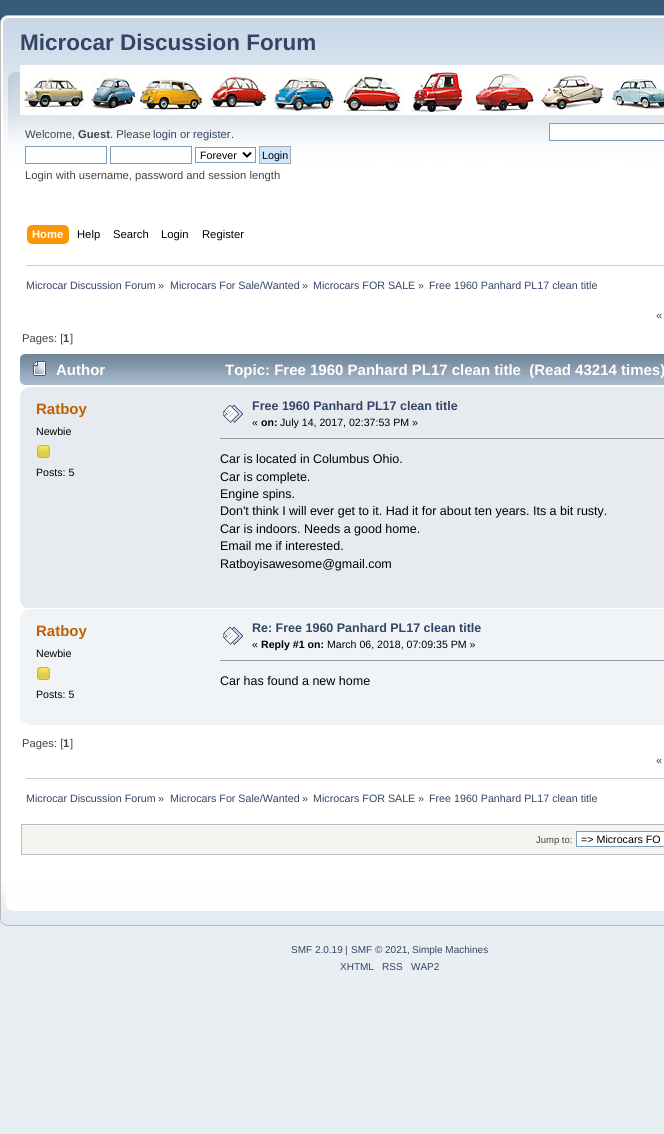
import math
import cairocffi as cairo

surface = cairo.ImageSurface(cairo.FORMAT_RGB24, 664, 1134)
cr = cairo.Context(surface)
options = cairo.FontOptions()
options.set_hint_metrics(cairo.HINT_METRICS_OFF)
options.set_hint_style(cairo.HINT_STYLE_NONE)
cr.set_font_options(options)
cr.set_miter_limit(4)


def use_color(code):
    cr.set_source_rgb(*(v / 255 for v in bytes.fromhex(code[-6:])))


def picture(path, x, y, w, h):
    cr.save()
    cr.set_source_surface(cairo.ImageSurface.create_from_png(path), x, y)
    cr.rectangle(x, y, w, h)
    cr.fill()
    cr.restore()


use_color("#e9eef2")
cr.paint()
picture("img1.png", 0, 0, 664, 15)
picture("img2.png", 0, 15, 664, 244)
cr.select_font_face("Liberation Sans", cairo.FONT_SLANT_NORMAL, cairo.FONT_WEIGHT_BOLD)
cr.set_font_size(22.5)
use_color("#334466")
cr.move_to(20, 50)
cr.show_text("Microcar Discussion Forum")
picture("img3.png", 20, 65, 644, 50)
cr.select_font_face("Liberation Sans")
cr.set_font_size(11.25)
use_color("#444444")
cr.move_to(25, 138)
cr.show_text("Welcome,")
cr.select_font_face("Liberation Sans", cairo.FONT_SLANT_NORMAL, cairo.FONT_WEIGHT_BOLD)
cr.move_to(78, 138)
cr.show_text("Guest")
cr.select_font_face("Liberation Sans")
cr.move_to(110, 138)
cr.show_text(". Please")
use_color("#334466")
cr.move_to(153, 138)
cr.show_text("login")
use_color("#444444")
cr.move_to(180, 138)
cr.show_text("or")
use_color("#334466")
cr.move_to(193, 138)
cr.show_text("register")
use_color("#444444")
cr.move_to(231, 138)
cr.show_text(".")
use_color("#ffffff")
cr.rectangle(26, 147, 80, 8)
cr.fill()
cr.rectangle(25.5, 146.5, 81, 17)
use_color("#7f9db9")
cr.set_line_width(1)
cr.stroke()
use_color("#ffffff")
cr.rectangle(111, 147, 80, 8)
cr.fill()
cr.rectangle(110.5, 146.5, 81, 17)
use_color("#7f9db9")
cr.stroke()
use_color("#ffffff")
cr.rectangle(196, 148, 59, 7)
cr.fill()
cr.rectangle(195.5, 147.5, 60, 15)
use_color("#7f9db9")
cr.stroke()
cr.new_path()
cr.move_to(243, 152.5)
cr.line_to(247, 156.5)
cr.line_to(251, 152.5)
use_color("#000000")
cr.set_line_width(2)
cr.stroke()
cr.set_font_size(10.7)
cr.move_to(200, 159)
cr.show_text("Forever")
use_color("#cde7ff")
cr.rectangle(259.5, 146.5, 31, 17)
cr.fill_preserve()
use_color("#aaaaaa")
cr.set_line_width(1)
cr.stroke()
use_color("#000000")
cr.move_to(262, 159)
cr.show_text("Login")
cr.set_font_size(11.25)
use_color("#444444")
cr.move_to(25, 179)
cr.show_text("Login with username, password and session length")
use_color("#ffffff")
cr.rectangle(549.5, 123.5, 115, 17)
cr.fill_preserve()
use_color("#7f9db9")
cr.stroke()
picture("img4.png", 32, 225, 37, 19)
picture("img5.png", 27, 225, 5, 19)
cr.select_font_face("Liberation Sans", cairo.FONT_SLANT_NORMAL, cairo.FONT_WEIGHT_BOLD)
use_color("#ffffff")
cr.move_to(32, 238)
cr.show_text("Home")
cr.select_font_face("Liberation Sans")
use_color("#000000")
cr.move_to(77, 238)
cr.show_text("Help")
cr.move_to(113, 238)
cr.show_text("Search")
cr.move_to(161, 238)
cr.show_text("Login")
cr.move_to(202, 238)
cr.show_text("Register")
use_color("#ffffff")
cr.rectangle(1, 259, 663, 623)
cr.fill()
use_color("#b7b7b7")
cr.rectangle(0, 259, 1, 623)
cr.fill()
use_color("#cccccc")
cr.rectangle(26, 265, 638, 1)
cr.fill()
cr.set_font_size(10.7)
use_color("#334466")
cr.move_to(26, 289)
cr.show_text("Microcar Discussion Forum")
use_color("#444444")
cr.move_to(158, 289)
cr.show_text("»")
use_color("#334466")
cr.move_to(170, 289)
cr.show_text("Microcars For Sale/Wanted")
use_color("#444444")
cr.move_to(302, 289)
cr.show_text("»")
use_color("#334466")
cr.move_to(313, 289)
cr.show_text("Microcars FOR SALE")
use_color("#444444")
cr.move_to(418, 289)
cr.show_text("»")
use_color("#334466")
cr.move_to(429, 289)
cr.show_text("Free 1960 Panhard PL17 clean title")
cr.set_font_size(11.25)
cr.move_to(656, 319)
cr.show_text("«")
use_color("#444444")
cr.move_to(22, 342)
cr.show_text("Pages: [")
cr.select_font_face("Liberation Sans", cairo.FONT_SLANT_NORMAL, cairo.FONT_WEIGHT_BOLD)
cr.move_to(63, 342)
cr.show_text("1")
cr.select_font_face("Liberation Sans")
cr.move_to(70, 342)
cr.show_text("]")
picture("img6.png", 20, 354, 644, 31)
picture("img7.png", 33, 361, 13, 15)
cr.select_font_face("Liberation Sans", cairo.FONT_SLANT_NORMAL, cairo.FONT_WEIGHT_BOLD)
cr.set_font_size(15)
use_color("#ffffff")
cr.move_to(56, 375)
cr.show_text("Author")
cr.move_to(225, 375)
cr.show_text("Topic: Free 1960 Panhard PL17 clean title  (Read 43214 times)")
use_color("#e7eaef")
cr.rectangle(20, 387, 644, 221)
cr.fill()
picture("img8.png", 20, 387, 9, 9)
use_color("#c06002")
cr.move_to(36, 414)
cr.show_text("Ratboy")
cr.select_font_face("Liberation Sans")
cr.set_font_size(10.6)
use_color("#000000")
cr.move_to(36, 435)
cr.show_text("Newbie")
picture("img9.png", 37, 445, 13, 13)
cr.move_to(36, 476)
cr.show_text("Posts: 5")
picture("img10.png", 223, 405, 20, 18)
cr.select_font_face("Liberation Sans", cairo.FONT_SLANT_NORMAL, cairo.FONT_WEIGHT_BOLD)
cr.set_font_size(12.5)
use_color("#334466")
cr.move_to(252, 410)
cr.show_text("Free 1960 Panhard PL17 clean title")
cr.select_font_face("Liberation Sans")
cr.set_font_size(10.6)
use_color("#000000")
cr.move_to(252, 426)
cr.show_text("«")
cr.select_font_face("Liberation Sans", cairo.FONT_SLANT_NORMAL, cairo.FONT_WEIGHT_BOLD)
cr.move_to(261, 426)
cr.show_text("on:")
cr.select_font_face("Liberation Sans")
cr.move_to(280, 426)
cr.show_text("July 14, 2017, 02:37:53 PM »")
use_color("#9999aa")
cr.rectangle(220, 438, 444, 1)
cr.fill()
cr.set_font_size(12.5)
use_color("#000000")
cr.move_to(220, 463)
cr.show_text("Car is located in Columbus Ohio.")
cr.move_to(220, 481)
cr.show_text("Car is complete.")
cr.move_to(220, 498)
cr.show_text("Engine spins.")
cr.move_to(220, 515)
cr.show_text("Don't think I will ever get to it. Had it for about ten years. Its a bit rusty.")
cr.move_to(220, 533)
cr.show_text("Car is indoors. Needs a good home.")
cr.move_to(220, 550)
cr.show_text("Email me if interested.")
cr.move_to(220, 568)
cr.show_text("Ratboyisawesome@gmail.com")
picture("img11.png", 20, 600, 6, 8)
use_color("#f0f4f7")
cr.rectangle(20, 609, 644, 116)
cr.fill()
picture("img12.png", 20, 609, 8, 8)
cr.select_font_face("Liberation Sans", cairo.FONT_SLANT_NORMAL, cairo.FONT_WEIGHT_BOLD)
cr.set_font_size(15)
use_color("#c06002")
cr.move_to(36, 636)
cr.show_text("Ratboy")
cr.select_font_face("Liberation Sans")
cr.set_font_size(10.6)
use_color("#000000")
cr.move_to(36, 657)
cr.show_text("Newbie")
picture("img13.png", 37, 667, 13, 13)
cr.move_to(36, 698)
cr.show_text("Posts: 5")
picture("img14.png", 223, 627, 20, 18)
cr.select_font_face("Liberation Sans", cairo.FONT_SLANT_NORMAL, cairo.FONT_WEIGHT_BOLD)
cr.set_font_size(12.5)
use_color("#334466")
cr.move_to(252, 632)
cr.show_text("Re: Free 1960 Panhard PL17 clean title")
cr.select_font_face("Liberation Sans")
cr.set_font_size(10.6)
use_color("#000000")
cr.move_to(252, 648)
cr.show_text("«")
cr.select_font_face("Liberation Sans", cairo.FONT_SLANT_NORMAL, cairo.FONT_WEIGHT_BOLD)
cr.move_to(261, 648)
cr.show_text("Reply #1 on:")
cr.select_font_face("Liberation Sans")
cr.move_to(327, 648)
cr.show_text("March 06, 2018, 07:09:35 PM »")
use_color("#9999aa")
cr.rectangle(220, 660, 444, 1)
cr.fill()
cr.set_font_size(12.5)
use_color("#000000")
cr.move_to(220, 685)
cr.show_text("Car has found a new home")
picture("img15.png", 20, 717, 8, 8)
cr.set_font_size(11.25)
use_color("#444444")
cr.move_to(22, 747)
cr.show_text("Pages: [")
cr.select_font_face("Liberation Sans", cairo.FONT_SLANT_NORMAL, cairo.FONT_WEIGHT_BOLD)
cr.move_to(63, 747)
cr.show_text("1")
cr.select_font_face("Liberation Sans")
cr.move_to(70, 747)
cr.show_text("]")
use_color("#334466")
cr.move_to(656, 764)
cr.show_text("«")
use_color("#cccccc")
cr.rectangle(26, 778, 638, 1)
cr.fill()
cr.set_font_size(10.7)
use_color("#334466")
cr.move_to(26, 802)
cr.show_text("Microcar Discussion Forum")
use_color("#444444")
cr.move_to(158, 802)
cr.show_text("»")
use_color("#334466")
cr.move_to(170, 802)
cr.show_text("Microcars For Sale/Wanted")
use_color("#444444")
cr.move_to(302, 802)
cr.show_text("»")
use_color("#334466")
cr.move_to(313, 802)
cr.show_text("Microcars FOR SALE")
use_color("#444444")
cr.move_to(418, 802)
cr.show_text("»")
use_color("#334466")
cr.move_to(429, 802)
cr.show_text("Free 1960 Panhard PL17 clean title")
use_color("#f5f5f0")
cr.rectangle(21.5, 824.5, 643, 30)
cr.fill_preserve()
use_color("#bbbbbb")
cr.stroke()
cr.set_font_size(9.5)
use_color("#444444")
cr.move_to(536, 843)
cr.show_text("Jump to:")
use_color("#ffffff")
cr.rectangle(576.5, 831.5, 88, 15)
cr.fill_preserve()
use_color("#7f9db9")
cr.stroke()
cr.set_font_size(10.7)
use_color("#000000")
cr.move_to(581, 843)
cr.show_text("=> Microcars FO")
picture("img16.png", 0, 882, 664, 44)
cr.set_font_size(10)
use_color("#334466")
cr.move_to(291, 953)
cr.show_text("SMF 2.0.19")
use_color("#444444")
cr.move_to(345, 953)
cr.show_text("|")
use_color("#334466")
cr.move_to(351, 953)
cr.show_text("SMF © 2021")
use_color("#444444")
cr.move_to(407, 953)
cr.show_text(",")
use_color("#334466")
cr.move_to(412, 953)
cr.show_text("Simple Machines")
cr.move_to(340, 970)
cr.show_text("XHTML")
cr.move_to(382, 970)
cr.show_text("RSS")
cr.move_to(411, 970)
cr.show_text("WAP2")
surface.write_to_png("result.png")
